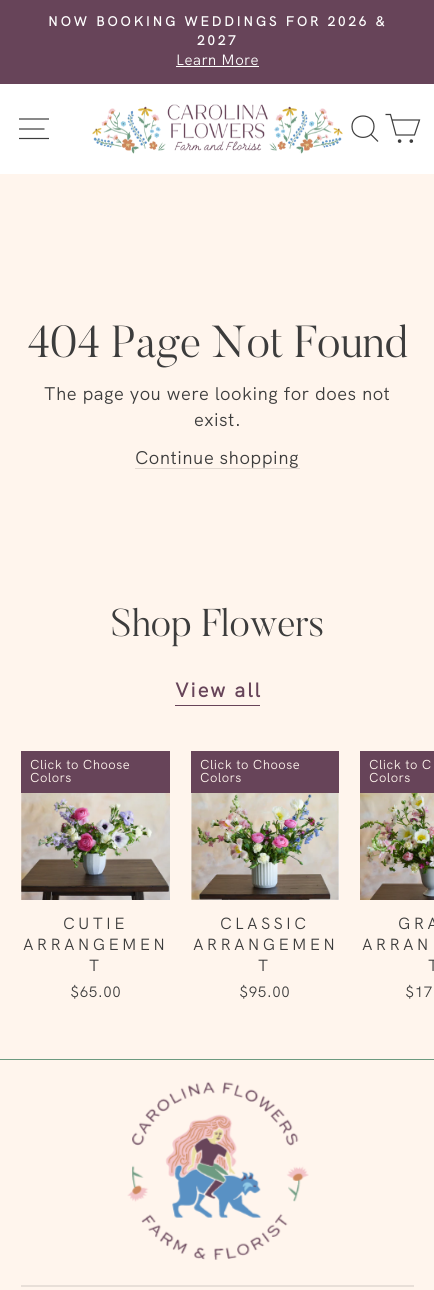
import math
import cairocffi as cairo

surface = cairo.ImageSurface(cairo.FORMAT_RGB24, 434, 1290)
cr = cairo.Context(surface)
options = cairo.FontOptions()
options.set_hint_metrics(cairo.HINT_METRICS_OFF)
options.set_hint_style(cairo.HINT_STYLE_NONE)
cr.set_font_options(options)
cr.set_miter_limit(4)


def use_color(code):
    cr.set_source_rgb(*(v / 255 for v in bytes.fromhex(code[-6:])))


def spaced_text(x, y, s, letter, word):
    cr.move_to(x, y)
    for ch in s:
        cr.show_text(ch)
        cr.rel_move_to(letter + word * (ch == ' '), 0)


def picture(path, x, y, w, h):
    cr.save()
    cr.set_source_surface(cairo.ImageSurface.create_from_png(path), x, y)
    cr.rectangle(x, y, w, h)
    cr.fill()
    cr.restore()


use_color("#fff5ed")
cr.paint()
use_color("#674459")
cr.rectangle(0, 0, 434, 84)
cr.fill()
cr.select_font_face("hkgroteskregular", cairo.FONT_SLANT_NORMAL, cairo.FONT_WEIGHT_BOLD)
cr.set_font_size(13.5)
use_color("#ffffff")
spaced_text(48, 26, "NOW BOOKING WEDDINGS FOR 2026 &", 2.7, 0)
spaced_text(197, 45, "2027", 2.7, 0)
cr.select_font_face("hkgroteskregular")
cr.set_font_size(15)
spaced_text(176, 65, "Learn More", 0.45, 0)
cr.rectangle(176, 66, 83, 1)
cr.fill()
cr.rectangle(0, 84, 434, 90)
cr.fill()
cr.new_path()
cr.move_to(19, 119)
cr.line_to(49, 119)
cr.move_to(19, 129)
cr.line_to(44.5, 129)
cr.move_to(19, 138.5)
cr.line_to(49, 138.5)
use_color("#3c3c3c")
cr.set_line_width(1.2)
cr.stroke()
picture("img1.png", 92, 104, 251, 50)
cr.new_path()
cr.move_to(374, 126.5)
cr.curve_to(374, 141, 352, 141, 352, 126.5)
cr.curve_to(352, 112.5, 374, 112.5, 374, 126.5)
cr.close_path()
cr.move_to(378, 141.5)
cr.line_to(371, 134.5)
cr.stroke()
cr.new_path()
cr.move_to(392, 120)
cr.line_to(419.5, 120)
cr.line_to(414.5, 135)
cr.line_to(396, 135)
cr.line_to(390.5, 114.5)
cr.line_to(385.5, 114.5)
cr.stroke()
cr.arc(399.6, 141.1, 1.2, 0, 2 * math.pi)
cr.fill_preserve()
cr.stroke()
cr.arc(411.3, 141.1, 1.2, 0, 2 * math.pi)
cr.fill_preserve()
cr.stroke()
cr.select_font_face("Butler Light")
cr.set_font_size(44.6)
cr.move_to(27, 357)
cr.show_text("404 Page Not Found")
cr.select_font_face("hkgroteskregular")
cr.set_font_size(18.4)
spaced_text(44, 400, "The page you were looking for does not", 0.45, 0)
spaced_text(194, 426, "exist.", 0.45, 0)
spaced_text(135, 464, "Continue shopping", 0.45, 0)
use_color("#e2d9d2")
cr.rectangle(135, 468, 165, 1)
cr.fill()
cr.select_font_face("Butler Light")
cr.set_font_size(38.5)
use_color("#3c3c3c")
cr.move_to(111, 636)
cr.show_text("Shop Flowers")
cr.select_font_face("hkgroteskregular", cairo.FONT_SLANT_NORMAL, cairo.FONT_WEIGHT_BOLD)
cr.set_font_size(20)
use_color("#674459")
spaced_text(175, 697, "View all", 2, 0)
cr.rectangle(175, 705, 85, 1)
cr.fill()
cr.rectangle(21, 751, 149, 42)
cr.fill()
cr.select_font_face("hkgroteskregular")
cr.set_font_size(13)
use_color("#fff5ed")
spaced_text(30, 769, "Click to Choose", 0.45, 0)
spaced_text(30, 782, "Colors", 0.45, 0)
picture("img2.png", 21, 793, 149, 107)
cr.set_font_size(16.25)
use_color("#3c3c3c")
spaced_text(63, 929, "CUTIE", 3.25, 0)
spaced_text(23, 950, "ARRANGEMEN", 3.25, 0)
spaced_text(89, 971, "T", 3.25, 0)
cr.set_font_size(15)
spaced_text(70, 997, "$65.00", 0.45, 0)
use_color("#674459")
cr.rectangle(191, 751, 148, 42)
cr.fill()
cr.set_font_size(13)
use_color("#fff5ed")
spaced_text(200, 769, "Click to Choose", 0.45, 0)
spaced_text(200, 782, "Colors", 0.45, 0)
use_color("#ffffff")
cr.rectangle(191, 793, 148, 107)
cr.fill()
picture("img3.png", 191, 793, 148, 107)
cr.set_font_size(16.25)
use_color("#3c3c3c")
spaced_text(220, 929, "CLASSIC", 3.25, 0)
spaced_text(193, 950, "ARRANGEMEN", 3.25, 0)
spaced_text(258, 971, "T", 3.25, 0)
cr.set_font_size(15)
spaced_text(239, 997, "$95.00", 0.45, 0)
use_color("#674459")
cr.rectangle(360, 751, 74, 42)
cr.fill()
cr.set_font_size(13)
use_color("#fff5ed")
spaced_text(369, 769, "Click to C", 0.45, 0)
spaced_text(369, 782, "Colors", 0.45, 0)
picture("img4.png", 360, 793, 74, 107)
cr.set_font_size(16.25)
use_color("#3c3c3c")
spaced_text(398, 929, "GRA", 3.25, 0)
spaced_text(362, 950, "ARRAN", 3.25, 0)
spaced_text(428, 971, "T", 3.25, 0)
cr.set_font_size(15)
spaced_text(405, 997, "$17", 0.45, 0)
use_color("#6d9a80")
cr.rectangle(0, 1059, 434, 1)
cr.fill()
picture("img5.png", 127, 1081, 182, 179)
use_color("#e8dfd8")
cr.rectangle(21, 1285, 393, 2)
cr.fill()
surface.write_to_png("result.png")
